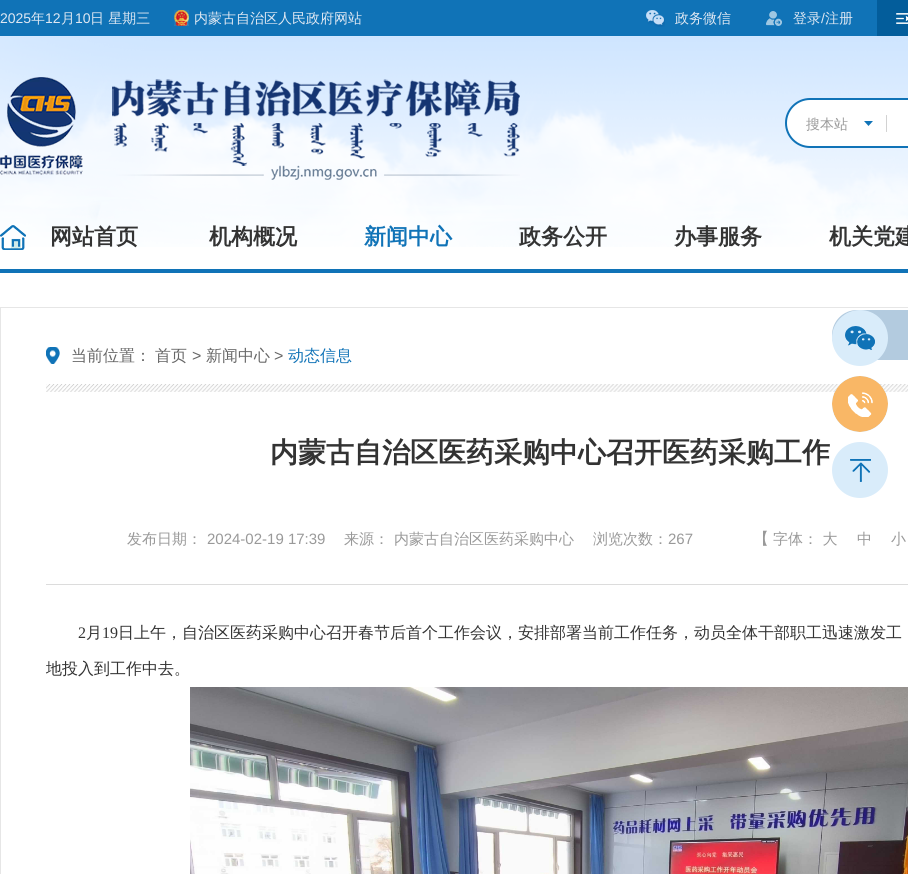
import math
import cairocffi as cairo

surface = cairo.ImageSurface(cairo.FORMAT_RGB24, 908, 874)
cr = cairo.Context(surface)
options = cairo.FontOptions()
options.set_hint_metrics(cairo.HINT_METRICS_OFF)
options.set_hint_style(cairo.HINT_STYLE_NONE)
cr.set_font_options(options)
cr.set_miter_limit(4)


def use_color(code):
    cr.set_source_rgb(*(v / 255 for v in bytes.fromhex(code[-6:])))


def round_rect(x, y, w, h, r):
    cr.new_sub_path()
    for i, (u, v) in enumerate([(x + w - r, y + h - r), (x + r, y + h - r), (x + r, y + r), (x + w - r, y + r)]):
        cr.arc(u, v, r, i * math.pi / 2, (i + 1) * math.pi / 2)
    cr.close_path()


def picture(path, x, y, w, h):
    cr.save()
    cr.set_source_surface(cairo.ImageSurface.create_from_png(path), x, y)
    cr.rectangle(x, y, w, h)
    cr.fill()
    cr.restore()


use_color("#ffffff")
cr.paint()
picture("img1.png", 0, 36, 908, 211)
use_color("#1073b7")
cr.rectangle(0, 0, 877, 36)
cr.fill()
cr.select_font_face("Liberation Sans")
cr.set_font_size(14)
use_color("#dee7f2")
cr.move_to(0, 23)
cr.show_text("2025")
cr.select_font_face("WenQuanYi Zen Hei Medium")
cr.move_to(31, 23)
cr.show_text("年")
cr.select_font_face("Liberation Sans")
cr.move_to(45, 23)
cr.show_text("12")
cr.select_font_face("WenQuanYi Zen Hei Medium")
cr.move_to(61, 23)
cr.show_text("月")
cr.select_font_face("Liberation Sans")
cr.move_to(75, 23)
cr.show_text("10")
cr.select_font_face("WenQuanYi Zen Hei Medium")
cr.move_to(90, 23)
cr.show_text("日 星期三")
picture("img2.png", 174, 10, 15, 16)
cr.move_to(194, 23)
cr.show_text("内蒙古自治区人民政府网站")
picture("img3.png", 646, 10, 19, 17)
cr.move_to(675, 23)
cr.show_text("政务微信")
picture("img4.png", 766, 11, 16, 15)
cr.move_to(793, 23)
cr.show_text("登录")
cr.select_font_face("Liberation Sans")
cr.move_to(821, 23)
cr.show_text("/")
cr.select_font_face("WenQuanYi Zen Hei Medium")
cr.move_to(825, 23)
cr.show_text("注册")
use_color("#035d9b")
cr.rectangle(877, 0, 31, 36)
cr.fill()
picture("img5.png", 896, 13, 12, 11)
picture("img6.png", 0, 77, 520, 103)
use_color("#ffffff")
round_rect(786, 99, 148, 48, 24)
cr.fill_preserve()
use_color("#1073b7")
cr.stroke()
picture("img7.png", 864, 115, 23, 17)
use_color("#999999")
cr.move_to(806, 129)
cr.show_text("搜本站")
use_color("#1073b7")
cr.rectangle(0, 269, 908, 4)
cr.fill()
picture("img8.png", 0, 225, 26, 25)
cr.select_font_face("WenQuanYi Zen Hei", cairo.FONT_SLANT_NORMAL, cairo.FONT_WEIGHT_BOLD)
cr.set_font_size(22)
use_color("#333333")
cr.move_to(50, 244)
cr.show_text("网站首页")
cr.move_to(209, 244)
cr.show_text("机构概况")
use_color("#1073b7")
cr.move_to(364, 244)
cr.show_text("新闻中心")
use_color("#333333")
cr.move_to(519, 244)
cr.show_text("政务公开")
cr.move_to(674, 244)
cr.show_text("办事服务")
cr.move_to(829, 244)
cr.show_text("机关党建")
cr.rectangle(0.5, 307.5, 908, 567)
use_color("#e6e6e6")
cr.set_line_width(1)
cr.stroke()
use_color("#b3cbdf")
round_rect(832, 310, 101, 50, 25)
cr.fill()
use_color("#d9ecfa")
cr.arc(860, 338, 28, 0, 2 * math.pi)
cr.fill()
picture("img9.png", 845, 326, 30, 24)
picture("img12.png", 46, 384, 862, 8)
cr.arc(860, 404, 28, 0, 2 * math.pi)
cr.fill()
picture("img10.png", 832, 376, 56, 56)
cr.arc(860, 470, 28, 0, 2 * math.pi)
cr.fill()
picture("img11.png", 850, 459, 21, 23)
picture("img13.png", 46, 347, 14, 17)
cr.select_font_face("WenQuanYi Zen Hei Medium")
cr.set_font_size(16)
use_color("#666666")
cr.move_to(71, 361)
cr.show_text("当前位置：")
cr.move_to(155, 361)
cr.show_text("首页")
cr.select_font_face("Liberation Sans")
cr.move_to(192, 361)
cr.show_text(">")
cr.select_font_face("WenQuanYi Zen Hei Medium")
cr.move_to(206, 361)
cr.show_text("新闻中心")
cr.select_font_face("Liberation Sans")
cr.move_to(274, 361)
cr.show_text(">")
cr.select_font_face("WenQuanYi Zen Hei Medium")
use_color("#1073b7")
cr.move_to(288, 361)
cr.show_text("动态信息")
cr.select_font_face("WenQuanYi Zen Hei", cairo.FONT_SLANT_NORMAL, cairo.FONT_WEIGHT_BOLD)
cr.set_font_size(28)
use_color("#333333")
cr.move_to(270, 462)
cr.show_text("内蒙古自治区医药采购中心召开医药采购工作")
use_color("#dcdcdc")
cr.rectangle(46, 584, 862, 1)
cr.fill()
cr.select_font_face("WenQuanYi Zen Hei Medium")
cr.set_font_size(15)
use_color("#999999")
cr.move_to(127, 544)
cr.show_text("发布日期：")
cr.select_font_face("Liberation Sans")
cr.move_to(207, 544)
cr.show_text("2024-02-19 17:39")
cr.select_font_face("WenQuanYi Zen Hei Medium")
cr.move_to(344, 544)
cr.show_text("来源：")
cr.move_to(394, 544)
cr.show_text("内蒙古自治区医药采购中心")
cr.move_to(593, 544)
cr.show_text("浏览次数：")
cr.select_font_face("Liberation Sans")
cr.move_to(668, 544)
cr.show_text("267")
cr.select_font_face("WenQuanYi Zen Hei Medium")
cr.set_font_size(16)
cr.move_to(753, 544)
cr.show_text("【")
cr.set_font_size(15)
cr.move_to(773, 544)
cr.show_text("字体： 大")
cr.move_to(857, 544)
cr.show_text("中")
cr.move_to(891, 544)
cr.show_text("小")
cr.select_font_face("Liberation Serif")
cr.set_font_size(16)
use_color("#333333")
cr.move_to(78, 638)
cr.show_text("2")
cr.select_font_face("WenQuanYi Zen Hei Medium")
cr.move_to(86, 638)
cr.show_text("月")
cr.select_font_face("Liberation Serif")
cr.move_to(102, 638)
cr.show_text("19")
cr.select_font_face("WenQuanYi Zen Hei Medium")
cr.move_to(118, 638)
cr.show_text("日上午，自治区医药采购中心召开春节后首个工作会议，安排部署当前工作任务，动员全体干部职工迅速激发工")
cr.move_to(46, 674)
cr.show_text("地投入到工作中去。")
picture("img14.png", 190, 687, 718, 187)
surface.write_to_png("result.png")
